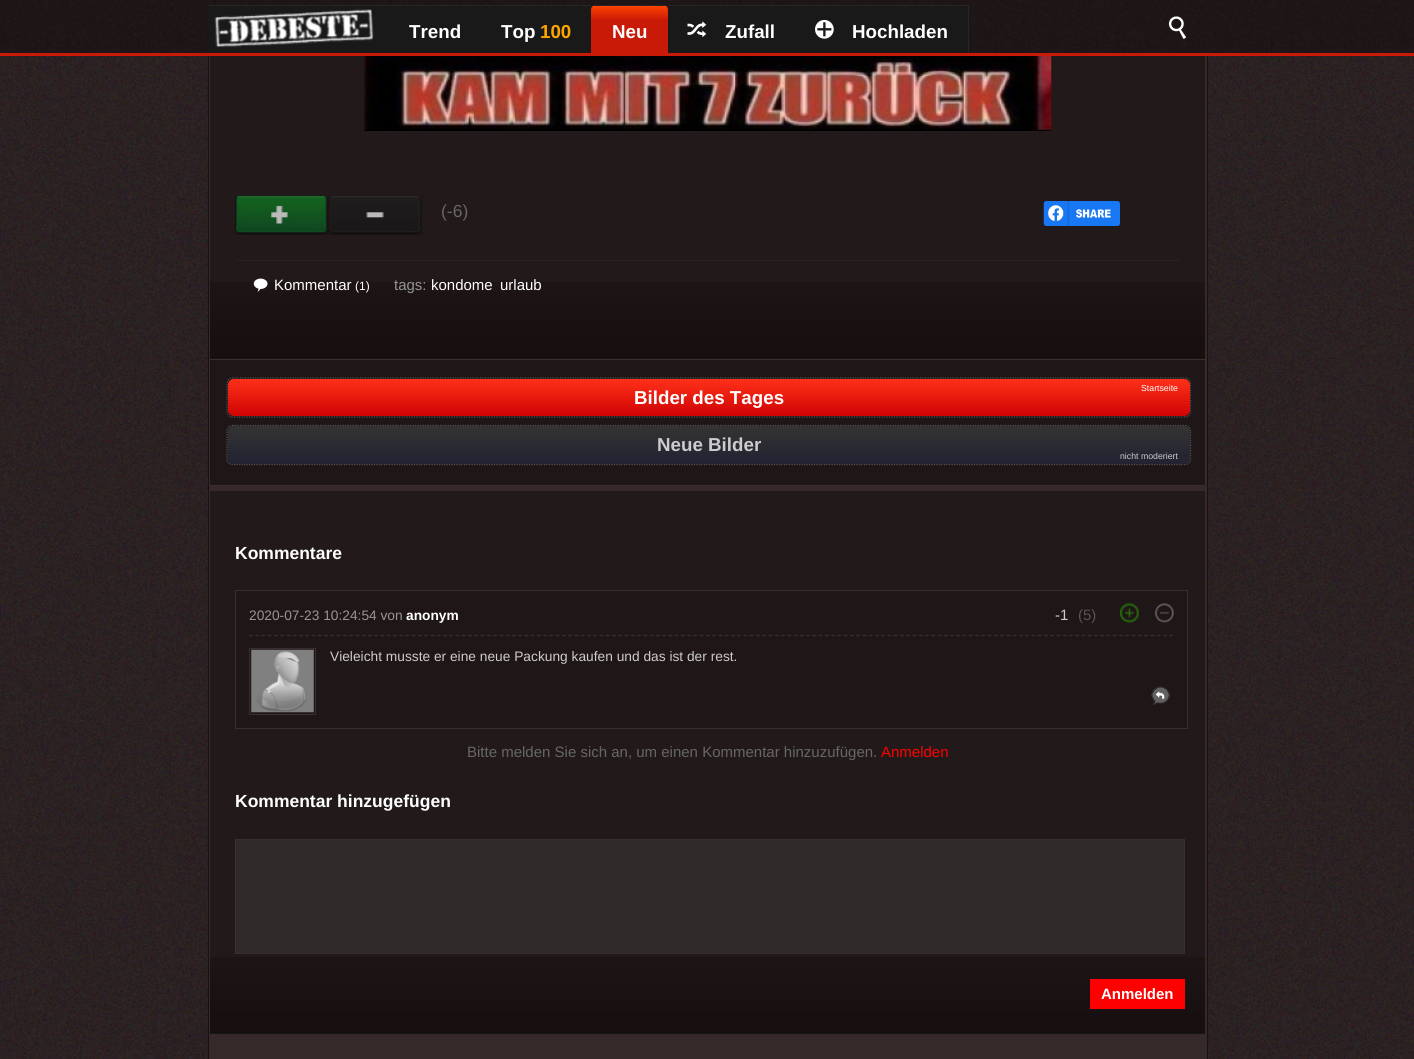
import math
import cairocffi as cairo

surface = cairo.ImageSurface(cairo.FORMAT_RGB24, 1414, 1059)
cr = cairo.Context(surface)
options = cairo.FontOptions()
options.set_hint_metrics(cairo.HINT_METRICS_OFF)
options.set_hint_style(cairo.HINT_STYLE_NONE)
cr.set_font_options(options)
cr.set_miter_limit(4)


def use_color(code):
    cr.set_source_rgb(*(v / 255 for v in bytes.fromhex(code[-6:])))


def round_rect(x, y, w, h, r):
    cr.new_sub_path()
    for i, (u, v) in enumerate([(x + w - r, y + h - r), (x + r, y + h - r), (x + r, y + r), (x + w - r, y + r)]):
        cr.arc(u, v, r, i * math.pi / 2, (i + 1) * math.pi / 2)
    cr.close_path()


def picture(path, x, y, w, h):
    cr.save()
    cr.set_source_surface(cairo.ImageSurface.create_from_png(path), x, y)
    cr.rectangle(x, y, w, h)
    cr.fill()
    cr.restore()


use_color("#ffffff")
cr.paint()
picture("img1.png", 0, 56, 1414, 1003)
use_color("#352929")
cr.rectangle(209, 56, 998, 1003)
cr.fill()
cr.rectangle(208.5, -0.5, 999, 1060)
use_color("#1b1010")
cr.set_line_width(1)
cr.stroke()
picture("img2.png", 0, 0, 1414, 53)
use_color("#c91907")
cr.rectangle(0, 53, 1414, 3)
cr.fill()
use_color("#262626")
cr.rectangle(968, 5, 1, 48)
cr.fill()
use_color("#191919")
cr.rectangle(208, 6, 383, 47)
cr.fill()
use_color("#262626")
cr.rectangle(208, 5, 383, 1)
cr.fill()
picture("img3.png", 214, 9, 160, 39)
cr.select_font_face("Liberation Sans", cairo.FONT_SLANT_NORMAL, cairo.FONT_WEIGHT_BOLD)
cr.set_font_size(18.75)
use_color("#ffffff")
cr.move_to(409, 38)
cr.show_text("Trend")
cr.move_to(501, 38)
cr.show_text("Top")
use_color("#ffa500")
cr.move_to(540, 38)
cr.show_text("100")
cr.save()
cr.new_path()
cr.move_to(596, 5)
cr.line_to(663, 5)
cr.curve_to(666, 5, 668, 7, 668, 10)
cr.line_to(668, 55)
cr.line_to(591, 55)
cr.line_to(591, 10)
cr.curve_to(591, 7, 593, 5, 596, 5)
cr.close_path()
cr.clip()
gradient = cairo.LinearGradient(629, -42, 629, 6.3)
gradient.add_color_stop_rgba(0, 0.988, 0.263, 0, 1)
gradient.add_color_stop_rgba(0.29, 0.788, 0.098, 0.027, 1)
gradient.add_color_stop_rgba(0.99, 0.788, 0.098, 0.027, 1)
cr.set_source(gradient)
cr.rectangle(591, 5, 77, 1)
cr.fill()
gradient = cairo.LinearGradient(629, 6.2, 629, 55)
gradient.add_color_stop_rgba(0, 0.988, 0.263, 0, 1)
gradient.add_color_stop_rgba(0.29, 0.788, 0.098, 0.027, 1)
gradient.add_color_stop_rgba(0.99, 0.788, 0.098, 0.027, 1)
cr.set_source(gradient)
cr.rectangle(591, 6, 77, 47)
cr.fill()
cr.restore()
use_color("#262626")
cr.rectangle(594, 5, 71, 1)
cr.fill()
use_color("#ffffff")
cr.move_to(612, 38)
cr.show_text("Neu")
use_color("#191919")
cr.rectangle(668, 6, 300, 47)
cr.fill()
use_color("#262626")
cr.rectangle(668, 5, 300, 1)
cr.fill()
picture("img4.png", 687, 21, 20, 17)
use_color("#ffffff")
cr.move_to(725, 38)
cr.show_text("Zufall")
picture("img5.png", 815, 19, 19, 20)
cr.move_to(852, 38)
cr.show_text("Hochladen")
picture("img6.png", 1168, 16, 18, 23)
use_color("#221a1a")
cr.rectangle(210, 56, 995, 303)
cr.fill()
picture("img7.png", 210, 282, 995, 77)
picture("img8.png", 363, 56, 689, 75)
picture("img9.png", 235, 195, 94, 40)
picture("img10.png", 329, 195, 94, 40)
cr.select_font_face("Liberation Sans")
cr.set_font_size(17.5)
use_color("#666666")
cr.move_to(441, 217)
cr.show_text("(-6)")
picture("img11.png", 1043, 201, 77, 25)
use_color("#242424")
cr.rectangle(235, 260, 945, 1)
cr.fill()
picture("img12.png", 253, 278, 15, 14)
cr.set_font_size(15)
use_color("#ffffff")
cr.move_to(274, 290)
cr.show_text("Kommentar")
cr.set_font_size(12)
cr.move_to(355, 290)
cr.show_text("(1)")
cr.set_font_size(15)
use_color("#959595")
cr.move_to(394, 290)
cr.show_text("tags:")
use_color("#ffffff")
cr.move_to(431, 290)
cr.show_text("kondome")
cr.move_to(500, 290)
cr.show_text("urlaub")
use_color("#1f1617")
cr.rectangle(209.5, 359.5, 996, 126)
cr.fill_preserve()
use_color("#3a2e2f")
cr.stroke()
cr.new_path()
cr.move_to(232.5, 378)
cr.line_to(1185, 378)
cr.curve_to(1188, 378, 1190.5, 380.5, 1190.5, 384)
cr.line_to(1190.5, 411)
cr.curve_to(1190.5, 414.5, 1188, 417, 1185, 417)
cr.line_to(232.5, 417)
cr.curve_to(229.5, 417, 227, 414.5, 227, 411)
cr.line_to(227, 384)
cr.curve_to(227, 380.5, 229.5, 378, 232.5, 378)
cr.close_path()
use_color("#555555")
cr.set_line_width(1.2)
cr.set_dash([1.25, 1.25])
cr.stroke()
gradient = cairo.LinearGradient(709, 379, 709, 416)
gradient.add_color_stop_rgba(0, 1, 0.188, 0.098, 1)
gradient.add_color_stop_rgba(1, 0.812, 0.016, 0.016, 1)
cr.set_source(gradient)
round_rect(228, 379, 962, 37, 6)
cr.fill()
cr.set_font_size(8.75)
use_color("#ffffff")
cr.move_to(1141, 391)
cr.show_text("Startseite")
cr.select_font_face("Liberation Sans", cairo.FONT_SLANT_NORMAL, cairo.FONT_WEIGHT_BOLD)
cr.set_font_size(18.75)
cr.move_to(634, 404)
cr.show_text("Bilder des Tages")
cr.new_path()
cr.move_to(232.5, 425.5)
cr.line_to(1185, 425.5)
cr.curve_to(1188, 425.5, 1190.5, 428, 1190.5, 431)
cr.line_to(1190.5, 459)
cr.curve_to(1190.5, 462, 1188, 464.5, 1185, 464.5)
cr.line_to(232.5, 464.5)
cr.curve_to(229.5, 464.5, 227, 462, 227, 459)
cr.line_to(227, 431)
cr.curve_to(227, 428, 229.5, 425.5, 232.5, 425.5)
cr.close_path()
use_color("#555555")
cr.stroke()
gradient = cairo.LinearGradient(709, 426, 709, 464)
gradient.add_color_stop_rgba(0.05, 0.2, 0.2, 0.2, 1)
gradient.add_color_stop_rgba(1, 0.133, 0.133, 0.2, 1)
cr.set_source(gradient)
round_rect(228, 426, 962, 38, 6)
cr.fill()
use_color("#cccccc")
cr.move_to(657, 451)
cr.show_text("Neue Bilder")
cr.select_font_face("Liberation Sans")
cr.set_font_size(8.75)
cr.move_to(1120, 459)
cr.show_text("nicht moderiert")
use_color("#221a1a")
cr.rectangle(210, 491, 995, 543)
cr.fill()
picture("img7.png", 210, 957, 995, 77)
cr.select_font_face("Liberation Sans", cairo.FONT_SLANT_NORMAL, cairo.FONT_WEIGHT_BOLD)
cr.set_font_size(17.5)
use_color("#ffffff")
cr.move_to(235, 559)
cr.show_text("Kommentare")
use_color("#1f1617")
cr.rectangle(235.5, 590.5, 952, 138)
cr.fill_preserve()
use_color("#3a2e2f")
cr.set_line_width(1)
cr.set_dash([])
cr.stroke()
cr.new_path()
cr.move_to(249, 635.5)
cr.line_to(1174, 635.5)
cr.set_line_width(1.2)
cr.set_dash([3.75, 2.51])
cr.stroke()
cr.select_font_face("Liberation Sans")
cr.set_font_size(13.75)
use_color("#959595")
cr.move_to(249, 620)
cr.show_text("2020-07-23 10:24:54 von")
cr.select_font_face("Liberation Sans", cairo.FONT_SLANT_NORMAL, cairo.FONT_WEIGHT_BOLD)
use_color("#ffffff")
cr.move_to(406, 620)
cr.show_text("anonym")
cr.select_font_face("Liberation Sans")
cr.set_font_size(15)
use_color("#cccccc")
cr.move_to(1055, 620)
cr.show_text("-1")
use_color("#555555")
cr.move_to(1078, 620)
cr.show_text("(5)")
picture("img13.png", 1120, 603, 19, 20)
picture("img14.png", 1155, 603, 19, 20)
cr.rectangle(249.5, 648.5, 66, 66)
use_color("#3a2e2f")
cr.set_line_width(1)
cr.set_dash([])
cr.stroke()
picture("img15.png", 251, 649, 63, 64)
cr.set_font_size(13.75)
use_color("#cccccc")
cr.move_to(330, 661)
cr.show_text("Vieleicht musste er eine neue Packung kaufen und das ist der rest.")
picture("img16.png", 1151, 686, 19, 19)
cr.set_font_size(15)
use_color("#666666")
cr.move_to(467, 757)
cr.show_text("Bitte melden Sie sich an, um einen Kommentar hinzuzufügen.")
use_color("#ff0000")
cr.move_to(881, 757)
cr.show_text("Anmelden")
cr.select_font_face("Liberation Sans", cairo.FONT_SLANT_NORMAL, cairo.FONT_WEIGHT_BOLD)
cr.set_font_size(17.5)
use_color("#ffffff")
cr.move_to(235, 807)
cr.show_text("Kommentar hinzugefügen")
use_color("#312a2a")
cr.rectangle(235.5, 839.5, 949, 114)
cr.fill_preserve()
use_color("#3a2e2f")
cr.stroke()
use_color("#ff0000")
cr.rectangle(1090, 979, 95, 30)
cr.fill()
cr.set_font_size(15)
use_color("#ffffff")
cr.move_to(1101, 999)
cr.show_text("Anmelden")
surface.write_to_png("result.png")
